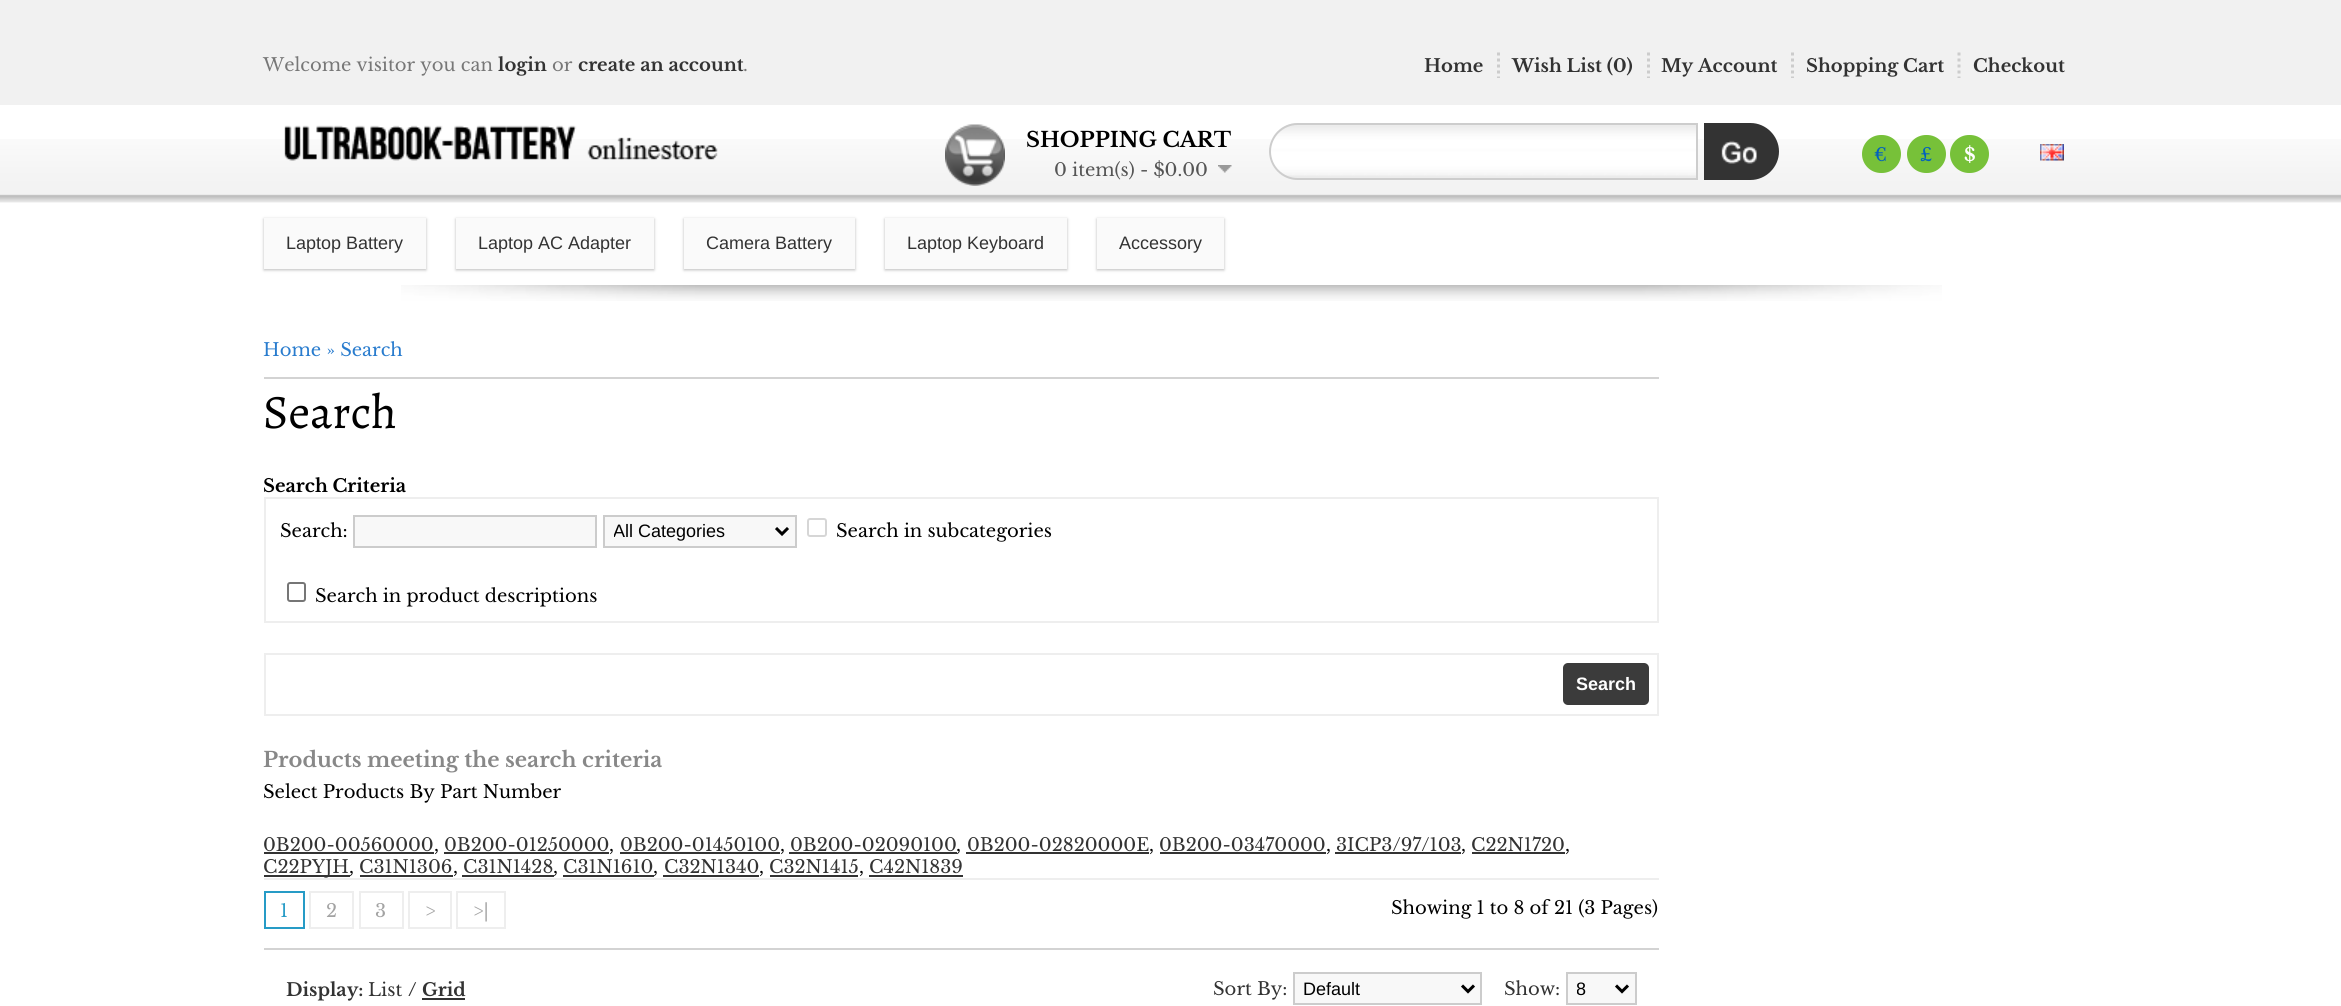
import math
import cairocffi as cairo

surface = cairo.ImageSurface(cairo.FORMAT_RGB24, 2341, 1006)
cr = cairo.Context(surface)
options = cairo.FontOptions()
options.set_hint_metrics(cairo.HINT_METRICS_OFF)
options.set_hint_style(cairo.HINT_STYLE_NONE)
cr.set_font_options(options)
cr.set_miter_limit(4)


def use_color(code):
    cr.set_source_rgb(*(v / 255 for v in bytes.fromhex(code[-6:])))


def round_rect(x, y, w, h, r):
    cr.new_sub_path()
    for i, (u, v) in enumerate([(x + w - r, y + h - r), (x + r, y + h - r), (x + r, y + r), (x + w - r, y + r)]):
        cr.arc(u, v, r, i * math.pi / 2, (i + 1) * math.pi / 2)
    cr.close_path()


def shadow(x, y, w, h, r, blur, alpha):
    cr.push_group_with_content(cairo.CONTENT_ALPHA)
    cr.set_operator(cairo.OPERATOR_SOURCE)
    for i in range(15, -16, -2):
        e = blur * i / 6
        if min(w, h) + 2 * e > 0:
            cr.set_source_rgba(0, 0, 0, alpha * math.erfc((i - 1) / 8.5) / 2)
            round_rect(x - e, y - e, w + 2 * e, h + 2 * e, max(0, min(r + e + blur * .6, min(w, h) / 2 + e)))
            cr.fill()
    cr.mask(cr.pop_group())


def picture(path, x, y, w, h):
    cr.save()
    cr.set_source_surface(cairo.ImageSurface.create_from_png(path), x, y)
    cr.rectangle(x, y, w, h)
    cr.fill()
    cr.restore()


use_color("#f1f1f1")
cr.paint()
use_color("#ffffff")
cr.rectangle(0, 105, 2341, 901)
cr.fill()
cr.select_font_face("Libre Baskerville")
cr.set_font_size(18)
use_color("#777777")
cr.move_to(263, 71)
cr.show_text("Welcome visitor you can")
cr.select_font_face("Libre Baskerville", cairo.FONT_SLANT_NORMAL, cairo.FONT_WEIGHT_BOLD)
use_color("#333333")
cr.move_to(498, 71)
cr.show_text("login")
cr.select_font_face("Libre Baskerville")
use_color("#777777")
cr.move_to(552, 71)
cr.show_text("or")
cr.select_font_face("Libre Baskerville", cairo.FONT_SLANT_NORMAL, cairo.FONT_WEIGHT_BOLD)
use_color("#333333")
cr.move_to(578, 71)
cr.show_text("create an account")
cr.select_font_face("Libre Baskerville")
use_color("#777777")
cr.move_to(743, 71)
cr.show_text(".")
cr.select_font_face("Libre Baskerville", cairo.FONT_SLANT_NORMAL, cairo.FONT_WEIGHT_BOLD)
use_color("#333333")
cr.move_to(1424, 72)
cr.show_text("Home")
cr.new_path()
cr.move_to(1498.5, 52.5)
cr.line_to(1498.5, 78)
use_color("#cccccc")
cr.set_line_width(3)
cr.set_dash([3, 3])
cr.stroke()
use_color("#333333")
cr.move_to(1512, 72)
cr.show_text("Wish List (0)")
cr.new_path()
cr.move_to(1648.5, 52.5)
cr.line_to(1648.5, 78)
use_color("#cccccc")
cr.stroke()
use_color("#333333")
cr.move_to(1661, 72)
cr.show_text("My Account")
cr.new_path()
cr.move_to(1792.5, 52.5)
cr.line_to(1792.5, 78)
use_color("#cccccc")
cr.stroke()
use_color("#333333")
cr.move_to(1806, 72)
cr.show_text("Shopping Cart")
cr.new_path()
cr.move_to(1959, 52.5)
cr.line_to(1959, 78)
use_color("#cccccc")
cr.stroke()
use_color("#333333")
cr.move_to(1973, 72)
cr.show_text("Checkout")
picture("img8.png", 0, 139, 2341, 64)
picture("img1.png", 284, 125, 434, 36)
picture("img2.png", 945, 124, 60, 62)
cr.set_font_size(21)
use_color("#000000")
cr.move_to(1026, 147)
cr.show_text("SHOPPING CART")
cr.select_font_face("Libre Baskerville")
cr.set_font_size(18)
use_color("#555555")
cr.move_to(1054, 176)
cr.show_text("0 item(s) - $0.00")
picture("img3.png", 1218, 165, 14, 8)
picture("img4.png", 1269, 123, 427, 57)
cr.new_path()
cr.move_to(1297.5, 124)
cr.line_to(1697, 124)
cr.line_to(1697, 179)
cr.line_to(1297.5, 179)
cr.curve_to(1282.5, 179, 1270, 166.5, 1270, 151.5)
cr.curve_to(1270, 136.5, 1282.5, 124, 1297.5, 124)
cr.close_path()
use_color("#cdcdcd")
cr.set_line_width(2)
cr.set_dash([])
cr.stroke()
use_color("#333333")
cr.new_path()
cr.move_to(1704, 123)
cr.line_to(1750.5, 123)
cr.curve_to(1766, 123, 1779, 136, 1779, 151.5)
cr.curve_to(1779, 167, 1766, 180, 1750.5, 180)
cr.line_to(1704, 180)
cr.close_path()
cr.fill()
picture("img5.png", 1721, 140, 36, 24)
use_color("#77c139")
round_rect(1862, 135, 39, 38, 19)
cr.fill()
use_color("#0261bd")
cr.move_to(1874, 161)
cr.show_text("€")
use_color("#77c139")
round_rect(1907, 135, 39, 38, 19)
cr.fill()
use_color("#0261bd")
cr.move_to(1920, 161)
cr.show_text("£")
use_color("#77c139")
round_rect(1950, 135, 39, 38, 19)
cr.fill()
cr.select_font_face("Libre Baskerville", cairo.FONT_SLANT_NORMAL, cairo.FONT_WEIGHT_BOLD)
use_color("#ffffff")
cr.move_to(1964, 161)
cr.show_text("$")
picture("img6.png", 2040, 144, 24, 17)
picture("img7.png", 401, 285, 1541, 16)
use_color("#bbbbbb")
shadow(264, 219, 162, 51, 0, 1.5, 1)
use_color("#fafafa")
cr.rectangle(264, 218, 162, 51)
cr.fill()
cr.select_font_face("Liberation Sans")
use_color("#333333")
cr.move_to(286, 249)
cr.show_text("Laptop Battery")
use_color("#bbbbbb")
shadow(456, 219, 198, 51, 0, 1.5, 1)
use_color("#fafafa")
cr.rectangle(456, 218, 198, 51)
cr.fill()
use_color("#333333")
cr.move_to(478, 249)
cr.show_text("Laptop AC Adapter")
use_color("#bbbbbb")
shadow(684, 219, 171, 51, 0, 1.5, 1)
use_color("#fafafa")
cr.rectangle(684, 218, 171, 51)
cr.fill()
use_color("#333333")
cr.move_to(706, 249)
cr.show_text("Camera Battery")
use_color("#bbbbbb")
shadow(885, 219, 182, 51, 0, 1.5, 1)
use_color("#fafafa")
cr.rectangle(885, 218, 182, 51)
cr.fill()
use_color("#333333")
cr.move_to(907, 249)
cr.show_text("Laptop Keyboard")
use_color("#bbbbbb")
shadow(1097, 219, 127, 51, 0, 1.5, 1)
use_color("#fafafa")
cr.rectangle(1097, 218, 127, 51)
cr.fill()
use_color("#333333")
cr.move_to(1119, 249)
cr.show_text("Accessory")
use_color("#d3d3d3")
cr.rectangle(264, 377, 1395, 2)
cr.fill()
cr.select_font_face("Libre Baskerville")
use_color("#297cce")
cr.move_to(263, 356)
cr.show_text("Home » Search")
cr.select_font_face("Alegreya")
cr.set_font_size(48)
use_color("#000000")
cr.move_to(263, 428)
cr.show_text("Search")
cr.select_font_face("Libre Baskerville", cairo.FONT_SLANT_NORMAL, cairo.FONT_WEIGHT_BOLD)
cr.set_font_size(18)
cr.move_to(263, 492)
cr.show_text("Search Criteria")
cr.rectangle(265, 498, 1393, 124)
use_color("#eeeeee")
cr.stroke()
cr.select_font_face("Libre Baskerville")
use_color("#000000")
cr.move_to(280, 537)
cr.show_text("Search:")
use_color("#f8f8f8")
cr.rectangle(354, 516, 242, 31)
cr.fill_preserve()
use_color("#cccccc")
cr.stroke()
use_color("#f8f8f8")
cr.rectangle(604, 516, 192, 31)
cr.fill_preserve()
use_color("#cccccc")
cr.stroke()
cr.new_path()
cr.move_to(776, 528)
cr.line_to(782, 534)
cr.line_to(788, 528)
use_color("#000000")
cr.set_line_width(3)
cr.stroke()
cr.save()
cr.rectangle(614, 519, 154, 24)
cr.clip()
cr.select_font_face("Liberation Sans")
cr.move_to(613, 537)
cr.show_text("All Categories")
cr.restore()
round_rect(808, 519, 18, 17, 2)
use_color("#d6d6d6")
cr.set_line_width(2)
cr.stroke()
use_color("#000000")
cr.move_to(836, 537)
cr.show_text("Search in subcategories")
round_rect(288, 583, 17, 18, 2)
use_color("#767676")
cr.stroke()
use_color("#000000")
cr.move_to(315, 602)
cr.show_text("Search in product descriptions")
cr.rectangle(265, 654, 1393, 61)
use_color("#eeeeee")
cr.stroke()
use_color("#3b3b3b")
round_rect(1563, 663, 86, 42, 5)
cr.fill()
cr.select_font_face("Liberation Sans", cairo.FONT_SLANT_NORMAL, cairo.FONT_WEIGHT_BOLD)
use_color("#ffffff")
cr.move_to(1576, 690)
cr.show_text("Search")
cr.select_font_face("Libre Baskerville", cairo.FONT_SLANT_NORMAL, cairo.FONT_WEIGHT_BOLD)
cr.set_font_size(21)
use_color("#888888")
cr.move_to(263, 767)
cr.show_text("Products meeting the search criteria")
cr.select_font_face("Libre Baskerville")
cr.set_font_size(18)
use_color("#000000")
cr.move_to(263, 798)
cr.show_text("Select Products By Part Number")
use_color("#333333")
cr.move_to(263, 851)
cr.show_text("0B200-00560000")
cr.rectangle(264, 852, 170, 2)
cr.fill()
use_color("#000000")
cr.move_to(434, 851)
cr.show_text(",")
use_color("#333333")
cr.move_to(444, 851)
cr.show_text("0B200-01250000")
cr.rectangle(444, 852, 165, 2)
cr.fill()
use_color("#000000")
cr.move_to(609, 851)
cr.show_text(",")
use_color("#333333")
cr.move_to(620, 851)
cr.show_text("0B200-01450100")
cr.rectangle(620, 852, 160, 2)
cr.fill()
use_color("#000000")
cr.move_to(780, 851)
cr.show_text(",")
use_color("#333333")
cr.move_to(790, 851)
cr.show_text("0B200-02090100")
cr.rectangle(789, 852, 168, 2)
cr.fill()
use_color("#000000")
cr.move_to(956, 851)
cr.show_text(",")
use_color("#333333")
cr.move_to(967, 851)
cr.show_text("0B200-02820000E")
cr.rectangle(966, 852, 183, 2)
cr.fill()
use_color("#000000")
cr.move_to(1149, 851)
cr.show_text(",")
use_color("#333333")
cr.move_to(1159, 851)
cr.show_text("0B200-03470000")
cr.rectangle(1160, 852, 166, 2)
cr.fill()
use_color("#000000")
cr.move_to(1326, 851)
cr.show_text(",")
use_color("#333333")
cr.move_to(1336, 851)
cr.show_text("3ICP3/97/103")
cr.rectangle(1335, 852, 126, 2)
cr.fill()
use_color("#000000")
cr.move_to(1461, 851)
cr.show_text(",")
use_color("#333333")
cr.move_to(1471, 851)
cr.show_text("C22N1720")
cr.rectangle(1472, 852, 93, 2)
cr.fill()
use_color("#000000")
cr.move_to(1565, 851)
cr.show_text(",")
use_color("#333333")
cr.rectangle(264, 875, 86, 2)
cr.fill()
cr.move_to(263, 873)
cr.show_text("C22PYJH")
use_color("#000000")
cr.move_to(349, 873)
cr.show_text(",")
use_color("#333333")
cr.move_to(359, 873)
cr.show_text("C31N1306")
cr.rectangle(360, 875, 93, 2)
cr.fill()
use_color("#000000")
cr.move_to(453, 873)
cr.show_text(",")
use_color("#333333")
cr.move_to(463, 873)
cr.show_text("C31N1428")
cr.rectangle(462, 875, 92, 2)
cr.fill()
use_color("#000000")
cr.move_to(553, 873)
cr.show_text(",")
use_color("#333333")
cr.move_to(563, 873)
cr.show_text("C31N1610")
cr.rectangle(563, 875, 91, 2)
cr.fill()
use_color("#000000")
cr.move_to(653, 873)
cr.show_text(",")
use_color("#333333")
cr.move_to(664, 873)
cr.show_text("C32N1340")
cr.rectangle(663, 875, 96, 2)
cr.fill()
use_color("#000000")
cr.move_to(759, 873)
cr.show_text(",")
use_color("#333333")
cr.move_to(769, 873)
cr.show_text("C32N1415")
cr.rectangle(770, 875, 88, 2)
cr.fill()
use_color("#000000")
cr.move_to(859, 873)
cr.show_text(",")
use_color("#333333")
cr.move_to(869, 873)
cr.show_text("C42N1839")
cr.rectangle(869, 875, 94, 2)
cr.fill()
use_color("#eeeeee")
cr.rectangle(264, 878, 1395, 2)
cr.fill()
cr.rectangle(265, 892, 39, 36)
use_color("#269bc6")
cr.stroke()
cr.move_to(280, 917)
cr.show_text("1")
cr.rectangle(310, 892, 43, 36)
use_color("#eeeeee")
cr.stroke()
use_color("#a3a3a3")
cr.move_to(326, 917)
cr.show_text("2")
cr.rectangle(360, 892, 43, 36)
use_color("#eeeeee")
cr.stroke()
use_color("#a3a3a3")
cr.move_to(375, 917)
cr.show_text("3")
cr.rectangle(409, 892, 42, 36)
use_color("#eeeeee")
cr.stroke()
use_color("#a3a3a3")
cr.move_to(425, 917)
cr.show_text(">")
cr.rectangle(457, 892, 48, 36)
use_color("#eeeeee")
cr.stroke()
use_color("#a3a3a3")
cr.move_to(473, 917)
cr.show_text(">|")
use_color("#000000")
cr.move_to(1391, 914)
cr.show_text("Showing 1 to 8 of 21 (3 Pages)")
use_color("#d3d3d3")
cr.rectangle(264, 948, 1395, 2)
cr.fill()
cr.select_font_face("Libre Baskerville", cairo.FONT_SLANT_NORMAL, cairo.FONT_WEIGHT_BOLD)
use_color("#333333")
cr.move_to(286, 996)
cr.show_text("Display:")
cr.select_font_face("Libre Baskerville")
cr.move_to(368, 996)
cr.show_text("List")
cr.select_font_face("Libre Baskerville", cairo.FONT_SLANT_NORMAL, cairo.FONT_WEIGHT_BOLD)
cr.move_to(408, 996)
cr.show_text("/")
cr.move_to(422, 996)
cr.show_text("Grid")
cr.rectangle(422, 998, 43, 2)
cr.fill()
cr.select_font_face("Libre Baskerville")
cr.move_to(1213, 995)
cr.show_text("Sort By:")
use_color("#f8f8f8")
cr.rectangle(1294, 973, 187, 31)
cr.fill_preserve()
use_color("#cccccc")
cr.stroke()
cr.new_path()
cr.move_to(1462, 985.5)
cr.line_to(1468, 991.5)
cr.line_to(1474, 985.5)
use_color("#000000")
cr.set_line_width(3)
cr.stroke()
cr.select_font_face("Liberation Sans")
cr.move_to(1303, 995)
cr.show_text("Default")
cr.select_font_face("Libre Baskerville")
use_color("#333333")
cr.move_to(1504, 995)
cr.show_text("Show:")
use_color("#f8f8f8")
cr.rectangle(1567, 973, 69, 31)
cr.fill_preserve()
use_color("#cccccc")
cr.set_line_width(2)
cr.stroke()
cr.new_path()
cr.move_to(1616, 985.5)
cr.line_to(1622, 991.5)
cr.line_to(1628, 985.5)
use_color("#000000")
cr.set_line_width(3)
cr.stroke()
cr.save()
cr.rectangle(1577, 977, 31, 24)
cr.clip()
cr.select_font_face("Liberation Sans")
cr.move_to(1576, 995)
cr.show_text("8")
cr.restore()
surface.write_to_png("result.png")
